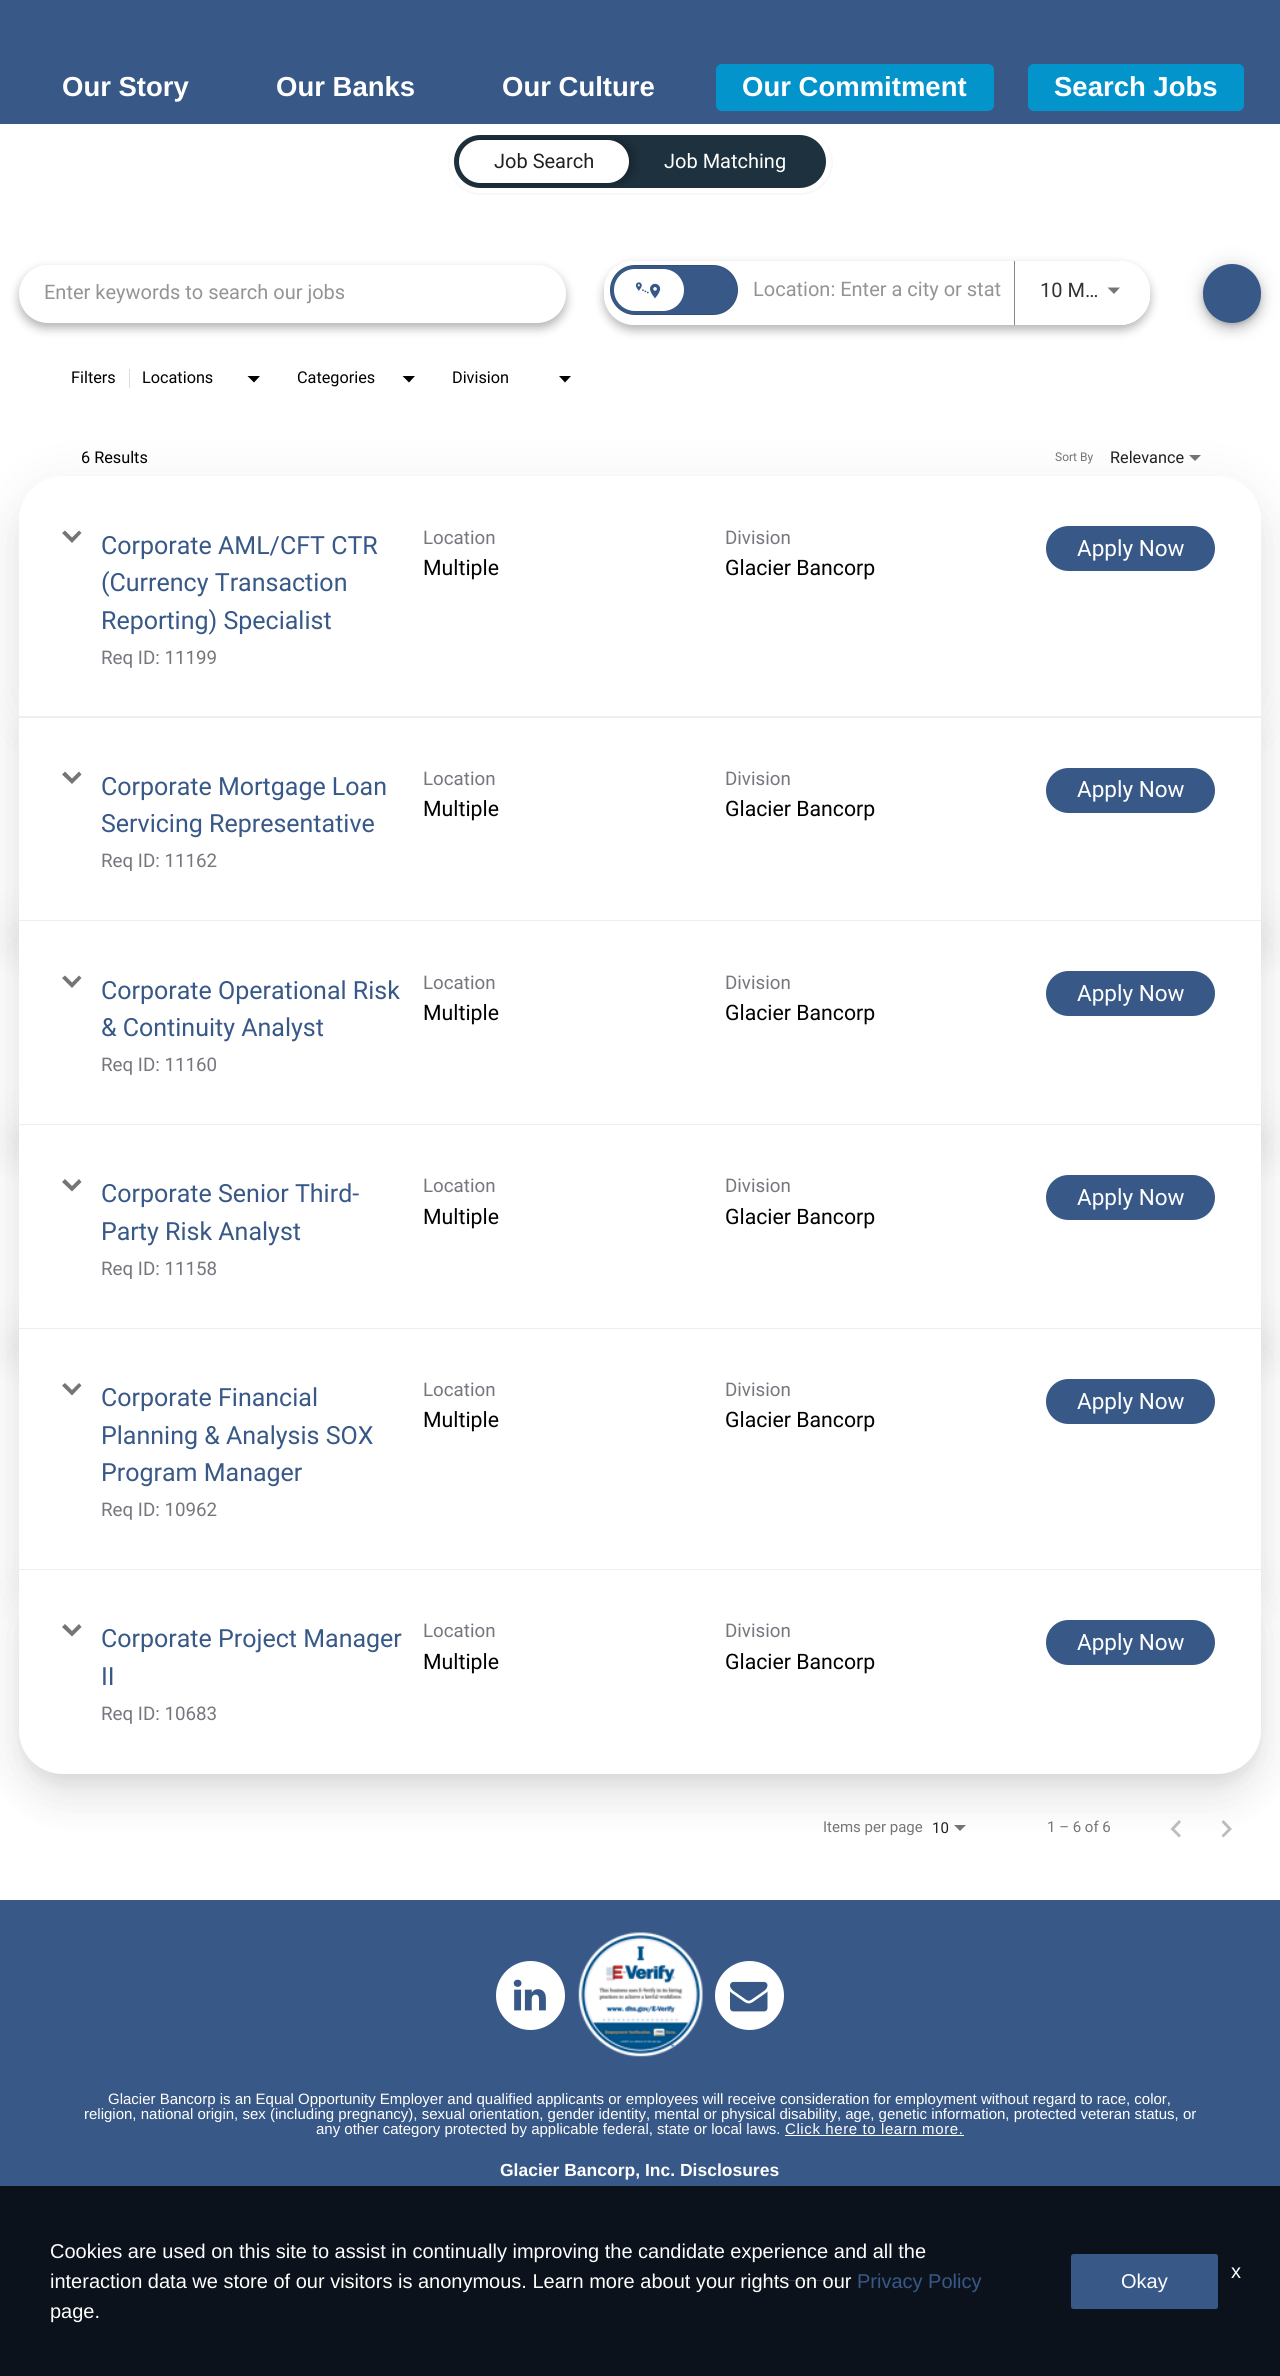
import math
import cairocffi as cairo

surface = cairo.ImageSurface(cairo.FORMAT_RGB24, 1280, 2376)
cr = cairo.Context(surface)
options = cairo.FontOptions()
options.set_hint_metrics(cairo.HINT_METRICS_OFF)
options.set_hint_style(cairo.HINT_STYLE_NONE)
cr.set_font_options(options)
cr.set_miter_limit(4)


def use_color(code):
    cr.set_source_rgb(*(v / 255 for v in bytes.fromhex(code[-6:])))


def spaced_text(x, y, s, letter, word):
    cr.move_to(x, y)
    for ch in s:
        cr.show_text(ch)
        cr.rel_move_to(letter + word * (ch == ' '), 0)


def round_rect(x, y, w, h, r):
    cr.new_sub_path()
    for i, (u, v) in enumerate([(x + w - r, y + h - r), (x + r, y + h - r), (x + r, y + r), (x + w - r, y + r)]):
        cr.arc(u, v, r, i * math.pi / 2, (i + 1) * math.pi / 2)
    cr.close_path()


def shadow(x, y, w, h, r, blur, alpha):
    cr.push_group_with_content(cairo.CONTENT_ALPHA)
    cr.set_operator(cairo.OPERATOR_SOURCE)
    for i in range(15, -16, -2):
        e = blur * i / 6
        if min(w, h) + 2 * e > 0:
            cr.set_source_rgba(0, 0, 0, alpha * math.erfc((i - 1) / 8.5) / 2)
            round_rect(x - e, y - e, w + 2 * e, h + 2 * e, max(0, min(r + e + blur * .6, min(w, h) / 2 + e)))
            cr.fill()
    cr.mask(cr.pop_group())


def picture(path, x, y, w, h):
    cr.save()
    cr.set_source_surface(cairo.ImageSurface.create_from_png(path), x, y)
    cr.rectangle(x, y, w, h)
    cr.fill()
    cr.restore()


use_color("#ffffff")
cr.paint()
use_color("#385988")
cr.rectangle(0, 0, 1280, 124)
cr.fill()
cr.select_font_face("Liberation Sans", cairo.FONT_SLANT_NORMAL, cairo.FONT_WEIGHT_BOLD)
cr.set_font_size(27.5)
use_color("#ffffff")
cr.move_to(62, 96)
cr.show_text("Our Story")
cr.move_to(276, 96)
cr.show_text("Our Banks")
cr.move_to(502, 96)
cr.show_text("Our Culture")
use_color("#0494cc")
round_rect(716, 64, 278, 47, 6)
cr.fill()
use_color("#ffffff")
cr.move_to(742, 96)
cr.show_text("Our Commitment")
use_color("#0494cc")
round_rect(1028, 64, 216, 47, 6)
cr.fill()
use_color("#ffffff")
cr.move_to(1054, 96)
cr.show_text("Search Jobs")
cr.set_source_rgba(0, 0, 0, 0.03)
cr.new_path()
cr.move_to(800, 130)
cr.curve_to(817, 130, 831, 144, 831, 161)
cr.curve_to(831, 179, 817, 192, 800, 192)
cr.line_to(480, 192)
cr.curve_to(463, 192, 449, 179, 449, 161)
cr.curve_to(449, 152, 452, 144, 458, 139)
cr.curve_to(452, 145, 448, 153, 448, 162)
cr.curve_to(448, 180, 463, 195, 480, 195)
cr.line_to(800, 195)
cr.curve_to(818, 195, 833, 180, 833, 162)
cr.curve_to(833, 145, 818, 130, 800, 130)
cr.close_path()
cr.fill()
use_color("#1e313e")
round_rect(451.5, 132.5, 377, 58, 29)
cr.fill_preserve()
use_color("#ffffff")
cr.set_line_width(5)
cr.stroke()
cr.save()
round_rect(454, 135, 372, 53, 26.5)
cr.clip()
use_color("#000000")
shadow(463, 140, 170, 43, 21.5, 5, 0.3)
cr.restore()
round_rect(459, 140, 170, 43, 21.5)
cr.fill()
cr.select_font_face("Roboto")
cr.set_font_size(20)
use_color("#212121")
cr.move_to(494, 168)
cr.show_text("Job Search")
use_color("#ffffff")
cr.move_to(664, 168)
cr.show_text("Job Matching")
use_color("#000000")
shadow(19, 270, 547, 58, 29, 5, 0.3)
use_color("#ffffff")
round_rect(19, 265, 547, 58, 29)
cr.fill()
use_color("#949494")
cr.move_to(44, 299)
cr.show_text("Enter keywords to search our jobs")
cr.save()
cr.set_fill_rule(cairo.FILL_RULE_EVEN_ODD)
cr.new_path()
cr.move_to(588, 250)
cr.line_to(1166, 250)
cr.line_to(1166, 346)
cr.line_to(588, 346)
cr.close_path()
cr.move_to(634, 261)
cr.line_to(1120, 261)
cr.curve_to(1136.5, 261, 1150, 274.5, 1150, 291)
cr.line_to(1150, 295)
cr.curve_to(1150, 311.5, 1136.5, 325, 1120, 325)
cr.line_to(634, 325)
cr.curve_to(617.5, 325, 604, 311.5, 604, 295)
cr.line_to(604, 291)
cr.curve_to(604, 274.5, 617.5, 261, 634, 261)
cr.close_path()
cr.clip()
use_color("#000000")
shadow(604, 266, 546, 64, 30, 5, 0.3)
cr.restore()
use_color("#ffffff")
round_rect(604, 261, 400, 58, 29)
cr.fill()
round_rect(604, 261, 140, 58, 29)
cr.fill()
use_color("#385988")
round_rect(610, 265, 128, 50, 25)
cr.fill()
round_rect(610.5, 265.5, 127, 49, 24.5)
cr.set_source_rgba(0, 0, 0, 0.12)
cr.set_line_width(1)
cr.stroke()
use_color("#385988")
cr.new_path()
cr.move_to(635, 266)
cr.line_to(686, 266)
cr.line_to(686, 314)
cr.line_to(635, 314)
cr.curve_to(621.5, 314, 611, 303.5, 611, 290)
cr.curve_to(611, 276.5, 621.5, 266, 635, 266)
cr.close_path()
cr.fill()
use_color("#ffffff")
round_rect(614, 269, 70, 42, 21)
cr.fill()
picture("img1.png", 635, 282, 26, 17)
use_color("#949494")
cr.move_to(753, 296)
cr.show_text("Location: Enter a city or stat")
use_color("#ffffff")
cr.new_path()
cr.move_to(1014, 261)
cr.line_to(1120, 261)
cr.curve_to(1136.5, 261, 1150, 274.5, 1150, 291)
cr.line_to(1150, 295)
cr.curve_to(1150, 311.5, 1136.5, 325, 1120, 325)
cr.line_to(1014, 325)
cr.close_path()
cr.fill()
use_color("#888888")
cr.rectangle(1014, 261, 1, 64)
cr.fill()
use_color("#333333")
cr.move_to(1040, 297)
cr.show_text("10 M…")
use_color("#757575")
cr.new_path()
cr.move_to(1107.5, 287.5)
cr.line_to(1120, 287.5)
cr.line_to(1114, 294)
cr.close_path()
cr.fill()
use_color("#000000")
shadow(1203, 265, 58, 59, 29, 11, 0.12)
shadow(1203, 271, 58, 59, 29, 6, 0.14)
shadow(1204, 269, 56, 56, 28, 3, 0.2)
use_color("#385988")
round_rect(1203, 264, 58, 59, 29)
cr.fill()
use_color("#dddddd")
cr.rectangle(129, 369, 1, 19)
cr.fill()
cr.set_font_size(16.25)
use_color("#000000")
cr.move_to(71, 383)
cr.show_text("Filters")
cr.move_to(142, 383)
cr.show_text("Locations")
cr.new_path()
cr.move_to(247.5, 376)
cr.line_to(260, 376)
cr.line_to(254, 382.5)
cr.close_path()
cr.fill()
cr.move_to(297, 383)
cr.show_text("Categories")
cr.new_path()
cr.move_to(402.5, 376)
cr.line_to(415, 376)
cr.line_to(409, 382.5)
cr.close_path()
cr.fill()
cr.move_to(452, 383)
cr.show_text("Division")
cr.new_path()
cr.move_to(559, 376)
cr.line_to(571, 376)
cr.line_to(565, 382.5)
cr.close_path()
cr.fill()
cr.move_to(81, 463)
cr.show_text("6 Results")
cr.set_font_size(12)
use_color("#757575")
cr.move_to(1055, 461)
cr.show_text("Sort By")
cr.set_font_size(16.25)
use_color("#212121")
cr.move_to(1110, 463)
cr.show_text("Relevance")
use_color("#757575")
cr.new_path()
cr.move_to(1189, 455)
cr.line_to(1201, 455)
cr.line_to(1195, 461)
cr.close_path()
cr.fill()
use_color("#000000")
shadow(10, 478, 1260, 258, 53, 24, 0.05)
shadow(15, 498, 1250, 248, 48, 19.5, 0.06)
shadow(10, 719, 1260, 221, 0, 24, 0.05)
shadow(15, 739, 1250, 211, 0, 19.5, 0.06)
use_color("#ffffff")
cr.new_path()
cr.move_to(63, 476)
cr.line_to(1217, 476)
cr.curve_to(1241.5, 476, 1261, 495.5, 1261, 520)
cr.line_to(1261, 718)
cr.line_to(19, 718)
cr.line_to(19, 520)
cr.curve_to(19, 495.5, 38.5, 476, 63, 476)
cr.close_path()
cr.fill()
use_color("#757575")
cr.new_path()
cr.move_to(81.5, 533)
cr.line_to(72, 543)
cr.line_to(72, 537.5)
cr.line_to(79, 530.5)
cr.close_path()
cr.move_to(72, 543)
cr.line_to(62, 533)
cr.line_to(65, 530.5)
cr.line_to(72, 537.5)
cr.close_path()
cr.fill()
cr.set_font_size(25)
use_color("#385988")
cr.move_to(101, 554)
cr.show_text("Corporate AML/CFT CTR")
cr.move_to(101, 591)
cr.show_text("(Currency Transaction")
cr.move_to(101, 629)
cr.show_text("Reporting) Specialist")
cr.set_font_size(18.75)
use_color("#76767e")
cr.move_to(101, 664)
cr.show_text("Req ID: 11199")
cr.move_to(423, 544)
cr.show_text("Location")
cr.set_font_size(21.25)
use_color("#000000")
cr.move_to(423, 575)
cr.show_text("Multiple")
cr.set_font_size(18.75)
use_color("#76767e")
cr.move_to(725, 544)
cr.show_text("Division")
cr.set_font_size(21.25)
use_color("#000000")
cr.move_to(725, 575)
cr.show_text("Glacier Bancorp")
use_color("#385988")
round_rect(1046, 526, 169, 45, 22.5)
cr.fill()
cr.set_font_size(22.5)
use_color("#ffffff")
cr.move_to(1077, 556)
cr.show_text("Apply Now")
use_color("#eeeeee")
cr.rectangle(19, 716, 1242, 2)
cr.fill()
use_color("#000000")
shadow(10, 923, 1260, 221, 0, 24, 0.05)
shadow(15, 943, 1250, 211, 0, 19.5, 0.06)
use_color("#ffffff")
cr.rectangle(19, 718, 1242, 202)
cr.fill()
use_color("#757575")
cr.new_path()
cr.move_to(81.5, 774.5)
cr.line_to(72, 784)
cr.line_to(72, 778.5)
cr.line_to(79, 771.5)
cr.close_path()
cr.move_to(72, 784)
cr.line_to(62, 774.5)
cr.line_to(65, 771.5)
cr.line_to(72, 778.5)
cr.close_path()
cr.fill()
cr.set_font_size(25)
use_color("#385988")
cr.move_to(101, 795)
cr.show_text("Corporate Mortgage Loan")
cr.move_to(101, 832)
cr.show_text("Servicing Representative")
cr.set_font_size(18.75)
use_color("#76767e")
cr.move_to(101, 867)
cr.show_text("Req ID: 11162")
cr.move_to(423, 785)
cr.show_text("Location")
cr.set_font_size(21.25)
use_color("#000000")
cr.move_to(423, 816)
cr.show_text("Multiple")
cr.set_font_size(18.75)
use_color("#76767e")
cr.move_to(725, 785)
cr.show_text("Division")
cr.set_font_size(21.25)
use_color("#000000")
cr.move_to(725, 816)
cr.show_text("Glacier Bancorp")
use_color("#385988")
round_rect(1046, 768, 169, 45, 22.5)
cr.fill()
cr.set_font_size(22.5)
use_color("#ffffff")
cr.move_to(1077, 797)
cr.show_text("Apply Now")
use_color("#eeeeee")
cr.rectangle(19, 920, 1242, 1)
cr.fill()
use_color("#000000")
shadow(10, 1126, 1260, 222, 0, 24, 0.05)
shadow(15, 1146, 1250, 212, 0, 19.5, 0.06)
use_color("#ffffff")
cr.rectangle(19, 921, 1242, 203)
cr.fill()
use_color("#757575")
cr.new_path()
cr.move_to(81.5, 978)
cr.line_to(72, 988)
cr.line_to(72, 982.5)
cr.line_to(79, 975.5)
cr.close_path()
cr.move_to(72, 988)
cr.line_to(62, 978)
cr.line_to(65, 975.5)
cr.line_to(72, 982.5)
cr.close_path()
cr.fill()
cr.set_font_size(25)
use_color("#385988")
cr.move_to(101, 999)
cr.show_text("Corporate Operational Risk")
cr.move_to(101, 1036)
cr.show_text("& Continuity Analyst")
cr.set_font_size(18.75)
use_color("#76767e")
cr.move_to(101, 1071)
cr.show_text("Req ID: 11160")
cr.move_to(423, 989)
cr.show_text("Location")
cr.set_font_size(21.25)
use_color("#000000")
cr.move_to(423, 1020)
cr.show_text("Multiple")
cr.set_font_size(18.75)
use_color("#76767e")
cr.move_to(725, 989)
cr.show_text("Division")
cr.set_font_size(21.25)
use_color("#000000")
cr.move_to(725, 1020)
cr.show_text("Glacier Bancorp")
use_color("#385988")
round_rect(1046, 971, 169, 45, 22.5)
cr.fill()
cr.set_font_size(22.5)
use_color("#ffffff")
cr.move_to(1077, 1001)
cr.show_text("Apply Now")
use_color("#eeeeee")
cr.rectangle(19, 1124, 1242, 1)
cr.fill()
use_color("#000000")
shadow(10, 1330, 1260, 259, 0, 24, 0.05)
shadow(15, 1350, 1250, 249, 0, 19.5, 0.06)
use_color("#ffffff")
cr.rectangle(19, 1125, 1242, 203)
cr.fill()
use_color("#757575")
cr.new_path()
cr.move_to(81.5, 1182)
cr.line_to(72, 1191.5)
cr.line_to(72, 1186)
cr.line_to(79, 1179)
cr.close_path()
cr.move_to(72, 1191.5)
cr.line_to(62, 1182)
cr.line_to(65, 1179)
cr.line_to(72, 1186)
cr.close_path()
cr.fill()
cr.set_font_size(25)
use_color("#385988")
cr.move_to(101, 1202)
cr.show_text("Corporate Senior Third-")
cr.move_to(101, 1240)
cr.show_text("Party Risk Analyst")
cr.set_font_size(18.75)
use_color("#76767e")
cr.move_to(101, 1275)
cr.show_text("Req ID: 11158")
cr.move_to(423, 1192)
cr.show_text("Location")
cr.set_font_size(21.25)
use_color("#000000")
cr.move_to(423, 1224)
cr.show_text("Multiple")
cr.set_font_size(18.75)
use_color("#76767e")
cr.move_to(725, 1192)
cr.show_text("Division")
cr.set_font_size(21.25)
use_color("#000000")
cr.move_to(725, 1224)
cr.show_text("Glacier Bancorp")
use_color("#385988")
round_rect(1046, 1175, 169, 45, 22.5)
cr.fill()
cr.set_font_size(22.5)
use_color("#ffffff")
cr.move_to(1077, 1205)
cr.show_text("Apply Now")
use_color("#eeeeee")
cr.rectangle(19, 1328, 1242, 1)
cr.fill()
use_color("#000000")
shadow(10, 1571, 1260, 222, 53, 24, 0.05)
shadow(15, 1591, 1250, 212, 48, 19.5, 0.06)
shadow(26, 1590, 1228, 189, 36, 8, 0.08)
use_color("#ffffff")
cr.rectangle(19, 1329, 1242, 240)
cr.fill()
use_color("#757575")
cr.new_path()
cr.move_to(81.5, 1385.5)
cr.line_to(72, 1395.5)
cr.line_to(72, 1390)
cr.line_to(79, 1383)
cr.close_path()
cr.move_to(72, 1395.5)
cr.line_to(62, 1385.5)
cr.line_to(65, 1383)
cr.line_to(72, 1390)
cr.close_path()
cr.fill()
cr.set_font_size(25)
use_color("#385988")
cr.move_to(101, 1406)
cr.show_text("Corporate Financial")
cr.move_to(101, 1444)
cr.show_text("Planning & Analysis SOX")
cr.move_to(101, 1481)
cr.show_text("Program Manager")
cr.set_font_size(18.75)
use_color("#76767e")
cr.move_to(101, 1516)
cr.show_text("Req ID: 10962")
cr.move_to(423, 1396)
cr.show_text("Location")
cr.set_font_size(21.25)
use_color("#000000")
cr.move_to(423, 1427)
cr.show_text("Multiple")
cr.set_font_size(18.75)
use_color("#76767e")
cr.move_to(725, 1396)
cr.show_text("Division")
cr.set_font_size(21.25)
use_color("#000000")
cr.move_to(725, 1427)
cr.show_text("Glacier Bancorp")
use_color("#385988")
round_rect(1046, 1379, 169, 45, 22.5)
cr.fill()
cr.set_font_size(22.5)
use_color("#ffffff")
cr.move_to(1077, 1409)
cr.show_text("Apply Now")
use_color("#eeeeee")
cr.rectangle(19, 1569, 1242, 1)
cr.fill()
use_color("#ffffff")
cr.new_path()
cr.move_to(19, 1570)
cr.line_to(1261, 1570)
cr.line_to(1261, 1730)
cr.curve_to(1261, 1754.5, 1241.5, 1774, 1217, 1774)
cr.line_to(63, 1774)
cr.curve_to(38.5, 1774, 19, 1754.5, 19, 1730)
cr.close_path()
cr.fill()
use_color("#757575")
cr.new_path()
cr.move_to(81.5, 1627)
cr.line_to(72, 1636.5)
cr.line_to(72, 1631)
cr.line_to(79, 1624)
cr.close_path()
cr.move_to(72, 1636.5)
cr.line_to(62, 1627)
cr.line_to(65, 1624)
cr.line_to(72, 1631)
cr.close_path()
cr.fill()
cr.set_font_size(25)
use_color("#385988")
cr.move_to(101, 1647)
cr.show_text("Corporate Project Manager")
cr.move_to(101, 1685)
cr.show_text("II")
cr.set_font_size(18.75)
use_color("#76767e")
cr.move_to(101, 1720)
cr.show_text("Req ID: 10683")
cr.move_to(423, 1637)
cr.show_text("Location")
cr.set_font_size(21.25)
use_color("#000000")
cr.move_to(423, 1669)
cr.show_text("Multiple")
cr.set_font_size(18.75)
use_color("#76767e")
cr.move_to(725, 1637)
cr.show_text("Division")
cr.set_font_size(21.25)
use_color("#000000")
cr.move_to(725, 1669)
cr.show_text("Glacier Bancorp")
use_color("#385988")
round_rect(1046, 1620, 169, 45, 22.5)
cr.fill()
cr.set_font_size(22.5)
use_color("#ffffff")
cr.move_to(1077, 1650)
cr.show_text("Apply Now")
cr.set_font_size(15)
use_color("#757575")
cr.move_to(823, 1832)
cr.show_text("Items per page")
use_color("#212121")
cr.move_to(932, 1833)
cr.show_text("10")
use_color("#747474")
cr.new_path()
cr.move_to(954, 1825)
cr.line_to(966, 1825)
cr.line_to(960, 1831)
cr.close_path()
cr.fill()
use_color("#757575")
cr.move_to(1047, 1832)
cr.show_text("1 – 6 of 6")
cr.set_source_rgba(0, 0, 0, 0.26)
cr.new_path()
cr.move_to(1181, 1822)
cr.line_to(1179, 1820)
cr.line_to(1170.5, 1829)
cr.line_to(1179, 1837.5)
cr.line_to(1181, 1835.5)
cr.line_to(1174.5, 1829)
cr.close_path()
cr.move_to(1223.5, 1820)
cr.line_to(1221.5, 1822)
cr.line_to(1228, 1829)
cr.line_to(1221.5, 1835.5)
cr.line_to(1223.5, 1837.5)
cr.line_to(1232, 1829)
cr.close_path()
cr.fill()
use_color("#385988")
cr.rectangle(0, 1900, 1280, 476)
cr.fill()
use_color("#ffffff")
cr.arc(530.5, 1995.5, 34.5, 0, 2 * math.pi)
cr.fill()
picture("img2.png", 513, 1979, 33, 32)
picture("img3.png", 578, 1932, 125, 125)
cr.arc(749.5, 1995.5, 34.5, 0, 2 * math.pi)
cr.fill()
picture("img4.png", 730, 1981, 38, 31)
cr.select_font_face("Liberation Sans")
cr.move_to(108, 2104)
cr.show_text("Glacier Bancorp is an Equal Opportunity Employer and qualified applicants or employees will receive consideration for employment without regard to race, color,")
cr.move_to(84, 2119)
cr.show_text("religion, national origin, sex (including pregnancy), sexual orientation, gender identity, mental or physical disability, age, genetic information, protected veteran status, or")
cr.move_to(316, 2134)
cr.show_text("any other category protected by applicable federal, state or local laws.")
spaced_text(785, 2134, "Click here to learn more.", 0.6, 0)
cr.rectangle(785, 2135, 179, 1)
cr.fill()
cr.select_font_face("Liberation Sans", cairo.FONT_SLANT_NORMAL, cairo.FONT_WEIGHT_BOLD)
cr.set_font_size(17.5)
cr.move_to(500, 2176)
cr.show_text("Glacier Bancorp, Inc. Disclosures")
cr.rectangle(763, 2280, 77, 1)
cr.fill()
cr.set_source_rgba(0, 0, 0, 0.8)
cr.rectangle(0, 2186, 1280, 190)
cr.fill()
cr.select_font_face("Liberation Sans")
cr.set_font_size(20)
use_color("#ffffff")
cr.move_to(50, 2258)
cr.show_text("Cookies are used on this site to assist in continually improving the candidate experience and all the")
cr.move_to(50, 2288)
cr.show_text("interaction data we store of our visitors is anonymous. Learn more about your rights on our")
use_color("#385988")
cr.move_to(857, 2288)
cr.show_text("Privacy Policy")
use_color("#ffffff")
cr.move_to(50, 2318)
cr.show_text("page.")
use_color("#385988")
round_rect(1071, 2254, 147, 55, 2.5)
cr.fill()
use_color("#ffffff")
cr.move_to(1121, 2288)
cr.show_text("Okay")
cr.move_to(1231, 2278)
cr.show_text("x")
surface.write_to_png("result.png")
